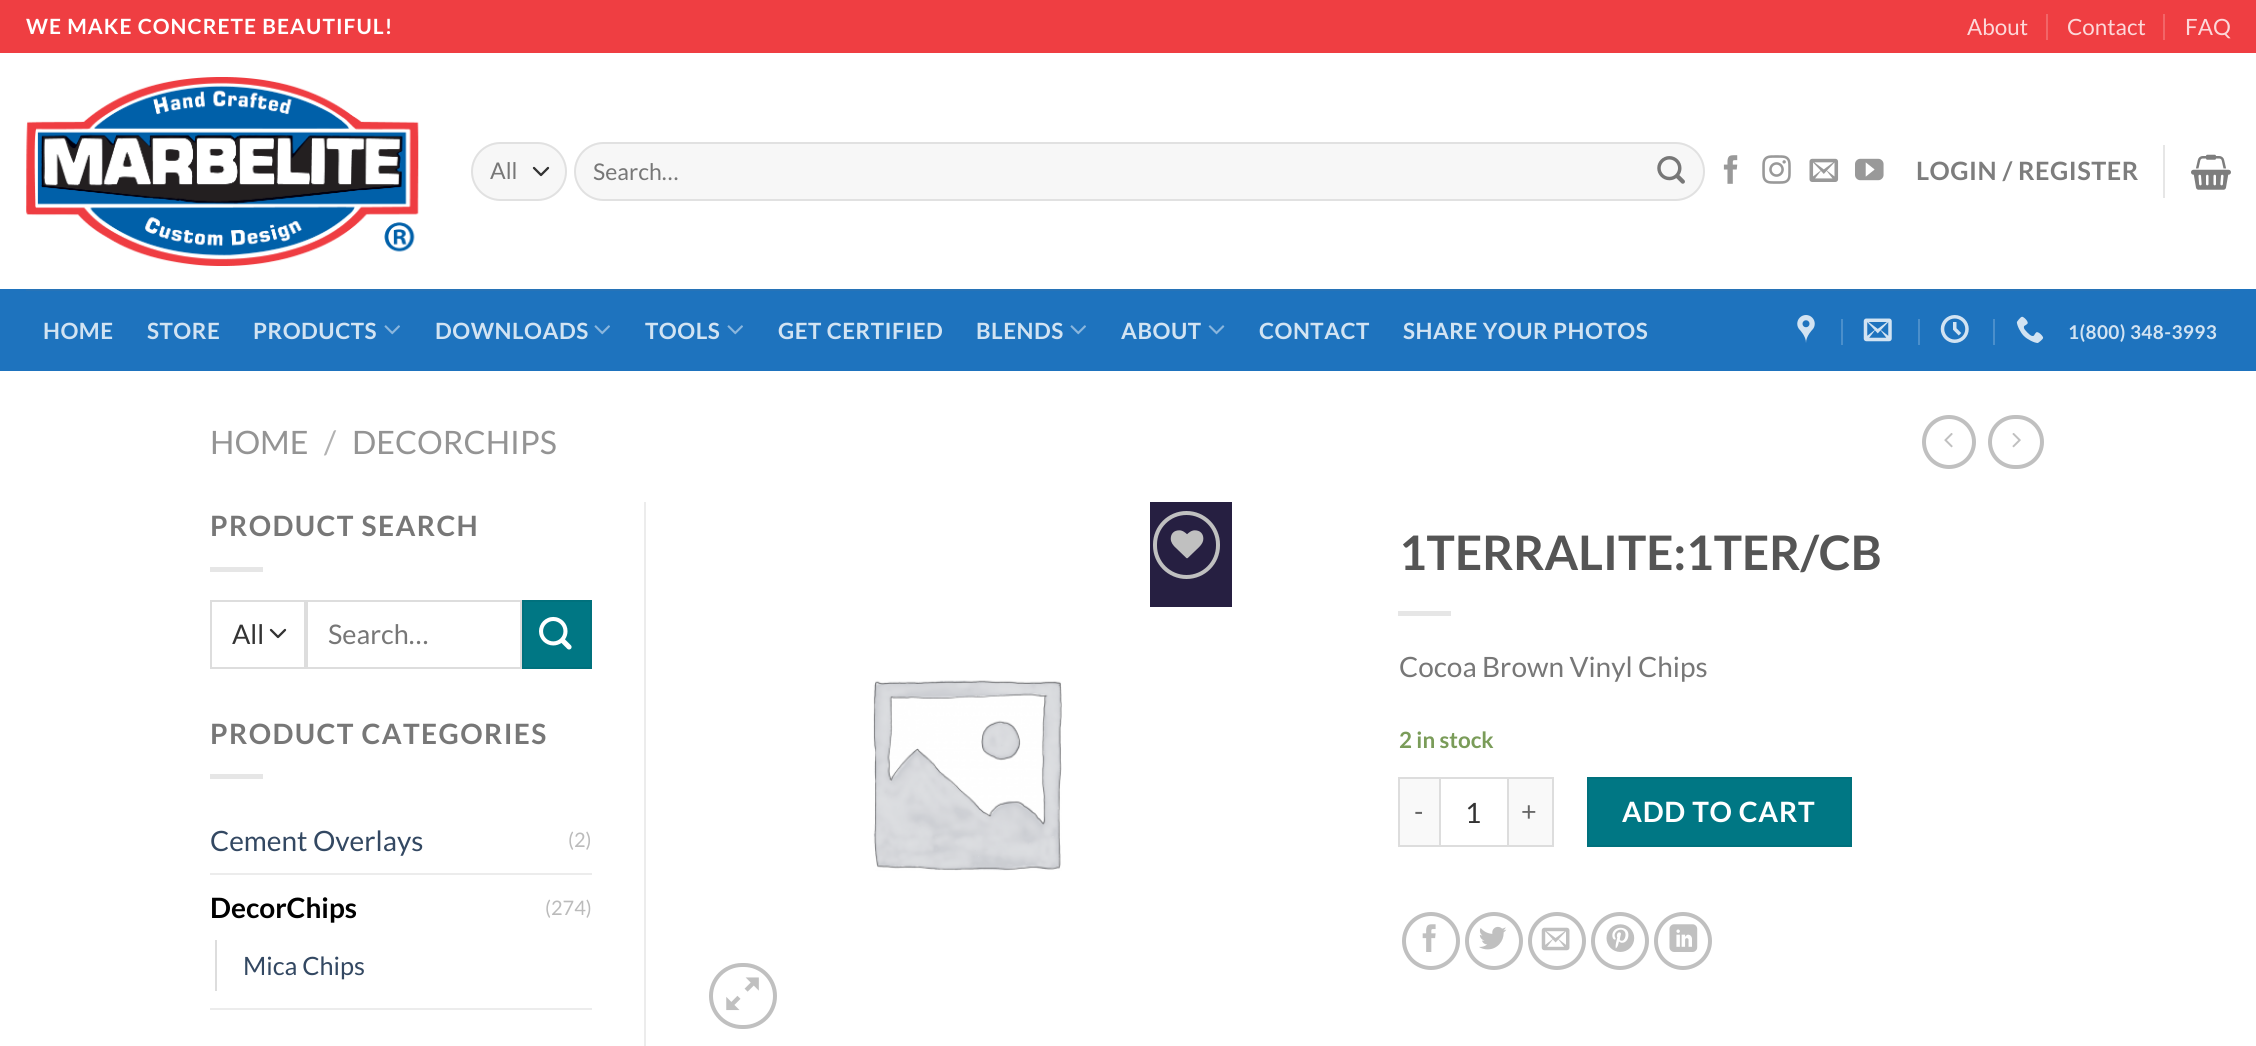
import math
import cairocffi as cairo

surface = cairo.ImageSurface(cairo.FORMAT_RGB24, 2256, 1046)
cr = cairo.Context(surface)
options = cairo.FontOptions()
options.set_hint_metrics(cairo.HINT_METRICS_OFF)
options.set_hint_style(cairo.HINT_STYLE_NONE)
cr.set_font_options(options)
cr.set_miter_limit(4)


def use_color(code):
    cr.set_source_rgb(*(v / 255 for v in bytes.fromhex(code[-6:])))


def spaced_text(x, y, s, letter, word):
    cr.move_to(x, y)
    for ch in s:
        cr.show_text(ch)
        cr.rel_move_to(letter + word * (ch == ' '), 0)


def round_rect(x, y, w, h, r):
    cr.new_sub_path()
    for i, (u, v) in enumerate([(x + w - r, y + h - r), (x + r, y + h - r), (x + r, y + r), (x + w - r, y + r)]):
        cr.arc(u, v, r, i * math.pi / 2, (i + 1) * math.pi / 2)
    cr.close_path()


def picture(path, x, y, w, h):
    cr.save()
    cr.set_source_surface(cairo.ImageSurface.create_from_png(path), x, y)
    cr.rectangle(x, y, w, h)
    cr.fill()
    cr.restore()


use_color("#ffffff")
cr.paint()
use_color("#ef3e42")
cr.rectangle(0, 0, 2256, 53)
cr.fill()
cr.select_font_face("Lato", cairo.FONT_SLANT_NORMAL, cairo.FONT_WEIGHT_BOLD)
cr.set_font_size(21)
use_color("#ffffff")
spaced_text(26, 34, "WE MAKE CONCRETE BEAUTIFUL!", 1.05, 0)
cr.select_font_face("Lato")
cr.set_font_size(22.4)
use_color("#fcd8d9")
cr.move_to(1967, 35)
cr.show_text("About")
use_color("#f26568")
cr.rectangle(2046, 14, 2, 26)
cr.fill()
use_color("#fcd8d9")
cr.move_to(2067, 35)
cr.show_text("Contact")
use_color("#f26568")
cr.rectangle(2163, 14, 2, 26)
cr.fill()
use_color("#fcd8d9")
cr.move_to(2185, 35)
cr.show_text("FAQ")
picture("img1.png", 26, 77, 393, 189)
use_color("#f7f7f7")
round_rect(471, 142, 96, 59, 29.5)
cr.fill()
cr.new_path()
cr.move_to(534, 168)
cr.line_to(541, 175)
cr.line_to(548, 168)
use_color("#333333")
cr.set_line_width(2.3)
cr.set_line_cap(cairo.LINE_CAP_ROUND)
cr.set_line_join(cairo.LINE_JOIN_ROUND)
cr.stroke()
round_rect(472, 143, 94, 57, 28.5)
cr.set_source_rgba(0, 0, 0, 0.09)
cr.set_line_width(2)
cr.set_line_cap(cairo.LINE_CAP_BUTT)
cr.set_line_join(cairo.LINE_JOIN_MITER)
cr.stroke()
cr.set_font_size(23)
use_color("#777777")
cr.move_to(490, 179)
cr.show_text("All")
use_color("#f7f7f7")
round_rect(574, 142, 1131, 59, 29.5)
cr.fill()
round_rect(575, 143, 1129, 57, 28.5)
cr.set_source_rgba(0, 0, 0, 0.09)
cr.stroke()
use_color("#777777")
cr.move_to(593, 180)
cr.show_text("Search…")
picture("img2.png", 1657, 156, 28, 28)
picture("img3.png", 1723, 155, 15, 29)
picture("img4.png", 1762, 155, 29, 29)
picture("img5.png", 1809, 158, 30, 24)
picture("img6.png", 1855, 158, 29, 23)
cr.select_font_face("Lato", cairo.FONT_SLANT_NORMAL, cairo.FONT_WEIGHT_BOLD)
cr.set_font_size(25.25)
use_color("#7d7d7d")
spaced_text(1916, 180, "LOGIN / REGISTER", 0.5, 0)
use_color("#e6e6e6")
cr.rectangle(2163, 145, 2, 53)
cr.fill()
picture("img7.png", 2191, 154, 40, 36)
use_color("#1e73be")
cr.rectangle(0, 289, 2256, 82)
cr.fill()
use_color("#2773b7")
cr.rectangle(26, 289, 2205, 2)
cr.fill()
cr.set_font_size(22.4)
use_color("#d2e3f2")
spaced_text(43, 339, "HOME", 0.5, 0)
spaced_text(147, 339, "STORE", 0.5, 0)
spaced_text(253, 339, "PRODUCTS", 0.5, 0)
picture("img8.png", 384, 325, 16, 10)
spaced_text(435, 339, "DOWNLOADS", 0.5, 0)
picture("img8.png", 594, 325, 16, 10)
spaced_text(645, 339, "TOOLS", 0.5, 0)
picture("img8.png", 727, 325, 16, 10)
spaced_text(778, 339, "GET CERTIFIED", 0.5, 0)
spaced_text(976, 339, "BLENDS", 0.5, 0)
picture("img8.png", 1070, 325, 16, 10)
spaced_text(1121, 339, "ABOUT", 0.5, 0)
picture("img9.png", 1208, 325, 17, 10)
spaced_text(1259, 339, "CONTACT", 0.5, 0)
spaced_text(1403, 339, "SHARE YOUR PHOTOS", 0.5, 0)
picture("img10.png", 1797, 315, 18, 28)
use_color("#4b8fcb")
cr.rectangle(1841, 319, 2, 26)
cr.fill()
picture("img11.png", 1863, 318, 29, 24)
cr.rectangle(1918, 319, 2, 26)
cr.fill()
picture("img12.png", 1940, 315, 29, 28)
cr.rectangle(1993, 319, 2, 26)
cr.fill()
picture("img13.png", 2016, 316, 28, 27)
cr.set_font_size(19)
use_color("#d2e3f2")
spaced_text(2068, 339, "1(800) 348-3993", 0.4, 0)
cr.select_font_face("Lato")
cr.set_font_size(32.25)
use_color("#949494")
cr.move_to(210, 454)
cr.show_text("HOME")
use_color("#b2b2b2")
cr.move_to(324, 454)
cr.show_text("/")
use_color("#949494")
cr.move_to(352, 454)
cr.show_text("DECORCHIPS")
cr.new_path()
cr.arc(1949, 442, 25, 0, 2 * math.pi)
use_color("#c0c0c0")
cr.set_line_width(4)
cr.stroke()
picture("img14.png", 1944, 433, 9, 15)
round_rect(1990, 417, 52, 50, 25)
cr.stroke()
picture("img15.png", 2012, 433, 9, 15)
cr.select_font_face("Lato", cairo.FONT_SLANT_NORMAL, cairo.FONT_WEIGHT_BOLD)
cr.set_font_size(28)
use_color("#777777")
spaced_text(210, 536, "PRODUCT SEARCH", 1.4, 0)
use_color("#e6e6e6")
cr.rectangle(210, 567, 53, 5)
cr.fill()
cr.new_path()
cr.move_to(271, 630)
cr.line_to(278, 637)
cr.line_to(285, 630)
use_color("#333333")
cr.set_line_width(2.3)
cr.set_line_cap(cairo.LINE_CAP_ROUND)
cr.set_line_join(cairo.LINE_JOIN_ROUND)
cr.stroke()
cr.rectangle(211, 601, 94, 67)
use_color("#dddddd")
cr.set_line_width(2)
cr.set_line_cap(cairo.LINE_CAP_BUTT)
cr.set_line_join(cairo.LINE_JOIN_MITER)
cr.stroke()
cr.select_font_face("Lato")
cr.set_font_size(27)
use_color("#333333")
cr.move_to(232, 644)
cr.show_text("All")
cr.rectangle(307, 601, 214, 67)
use_color("#dddddd")
cr.stroke()
use_color("#777777")
cr.move_to(328, 644)
cr.show_text("Search…")
use_color("#007784")
cr.rectangle(523, 601, 68, 67)
cr.fill_preserve()
use_color("#00717d")
cr.stroke()
picture("img16.png", 539, 616, 33, 34)
cr.select_font_face("Lato", cairo.FONT_SLANT_NORMAL, cairo.FONT_WEIGHT_BOLD)
cr.set_font_size(28)
use_color("#777777")
spaced_text(210, 744, "PRODUCT CATEGORIES", 1.4, 0)
use_color("#e6e6e6")
cr.rectangle(210, 774, 53, 5)
cr.fill()
cr.select_font_face("Lato")
use_color("#334862")
cr.move_to(210, 851)
cr.show_text("Cement Overlays")
cr.set_font_size(20)
use_color("#bbbbbb")
cr.move_to(568, 847)
cr.show_text("(2)")
use_color("#ececec")
cr.rectangle(210, 873, 382, 2)
cr.fill()
cr.select_font_face("Lato", cairo.FONT_SLANT_NORMAL, cairo.FONT_WEIGHT_BOLD)
cr.set_font_size(28)
use_color("#000000")
cr.move_to(210, 918)
cr.show_text("DecorChips")
cr.select_font_face("Lato")
cr.set_font_size(20)
use_color("#bbbbbb")
cr.move_to(545, 915)
cr.show_text("(274)")
use_color("#dddddd")
cr.rectangle(215, 940, 2, 51)
cr.fill()
cr.set_font_size(25.25)
use_color("#334862")
cr.move_to(243, 975)
cr.show_text("Mica Chips")
use_color("#ececec")
cr.rectangle(210, 1008, 382, 2)
cr.fill()
cr.rectangle(644, 502, 2, 544)
cr.fill()
use_color("#261f41")
cr.rectangle(1150, 502, 82, 105)
cr.fill()
round_rect(1155, 513, 63, 64, 31.5)
use_color("#c0c0c0")
cr.set_line_width(4)
cr.stroke()
picture("img17.png", 1170, 530, 34, 29)
picture("img18.png", 873, 680, 189, 191)
round_rect(711, 965, 64, 62, 31)
cr.stroke()
picture("img19.png", 726, 977, 33, 34)
cr.select_font_face("Lato", cairo.FONT_SLANT_NORMAL, cairo.FONT_WEIGHT_BOLD)
cr.set_font_size(47.6)
use_color("#555555")
cr.move_to(1399, 570)
cr.show_text("1TERRALITE:1TER/CB")
use_color("#e6e6e6")
cr.rectangle(1398, 611, 53, 5)
cr.fill()
cr.select_font_face("Lato")
cr.set_font_size(28)
use_color("#777777")
cr.move_to(1399, 677)
cr.show_text("Cocoa Brown Vinyl Chips")
cr.select_font_face("Lato", cairo.FONT_SLANT_NORMAL, cairo.FONT_WEIGHT_BOLD)
cr.set_font_size(22.4)
use_color("#7a9c59")
cr.move_to(1399, 748)
cr.show_text("2 in stock")
use_color("#f9f9f9")
cr.rectangle(1400, 779, 39, 66)
cr.fill()
use_color("#dddddd")
cr.rectangle(1398, 777, 41, 2)
cr.fill()
cr.rectangle(1398, 845, 41, 2)
cr.fill()
cr.rectangle(1398, 777, 2, 70)
cr.fill()
cr.select_font_face("Lato")
cr.set_font_size(27)
use_color("#666666")
spaced_text(1414, 821, "-", 1, 0)
cr.rectangle(1440, 778, 68, 68)
use_color("#dddddd")
cr.set_line_width(2)
cr.stroke()
cr.set_font_size(28)
use_color("#333333")
cr.move_to(1465, 823)
cr.show_text("1")
use_color("#f9f9f9")
cr.rectangle(1509, 779, 43, 66)
cr.fill()
use_color("#dddddd")
cr.rectangle(1509, 777, 45, 2)
cr.fill()
cr.rectangle(1552, 777, 2, 70)
cr.fill()
cr.rectangle(1509, 845, 45, 2)
cr.fill()
cr.set_font_size(27)
use_color("#666666")
spaced_text(1521, 821, "+", 1, 0)
use_color("#007784")
cr.rectangle(1588, 778, 263, 68)
cr.fill_preserve()
use_color("#00717d")
cr.stroke()
cr.select_font_face("Lato", cairo.FONT_SLANT_NORMAL, cairo.FONT_WEIGHT_BOLD)
cr.set_font_size(28)
use_color("#ffffff")
spaced_text(1622, 822, "ADD TO CART", 0.75, 0)
cr.new_path()
cr.arc(1431, 941, 27, 0, 2 * math.pi)
use_color("#c0c0c0")
cr.set_line_width(4)
cr.stroke()
picture("img20.png", 1422, 924, 14, 28)
cr.arc(1494, 941, 27, 0, 2 * math.pi)
cr.stroke()
picture("img21.png", 1479, 926, 28, 24)
cr.arc(1557, 941, 27, 0, 2 * math.pi)
cr.stroke()
picture("img22.png", 1541, 927, 29, 24)
cr.arc(1620, 941, 27, 0, 2 * math.pi)
cr.stroke()
picture("img23.png", 1606, 924, 29, 28)
cr.arc(1683, 941, 27, 0, 2 * math.pi)
cr.stroke()
picture("img24.png", 1669, 924, 29, 28)
surface.write_to_png("result.png")
